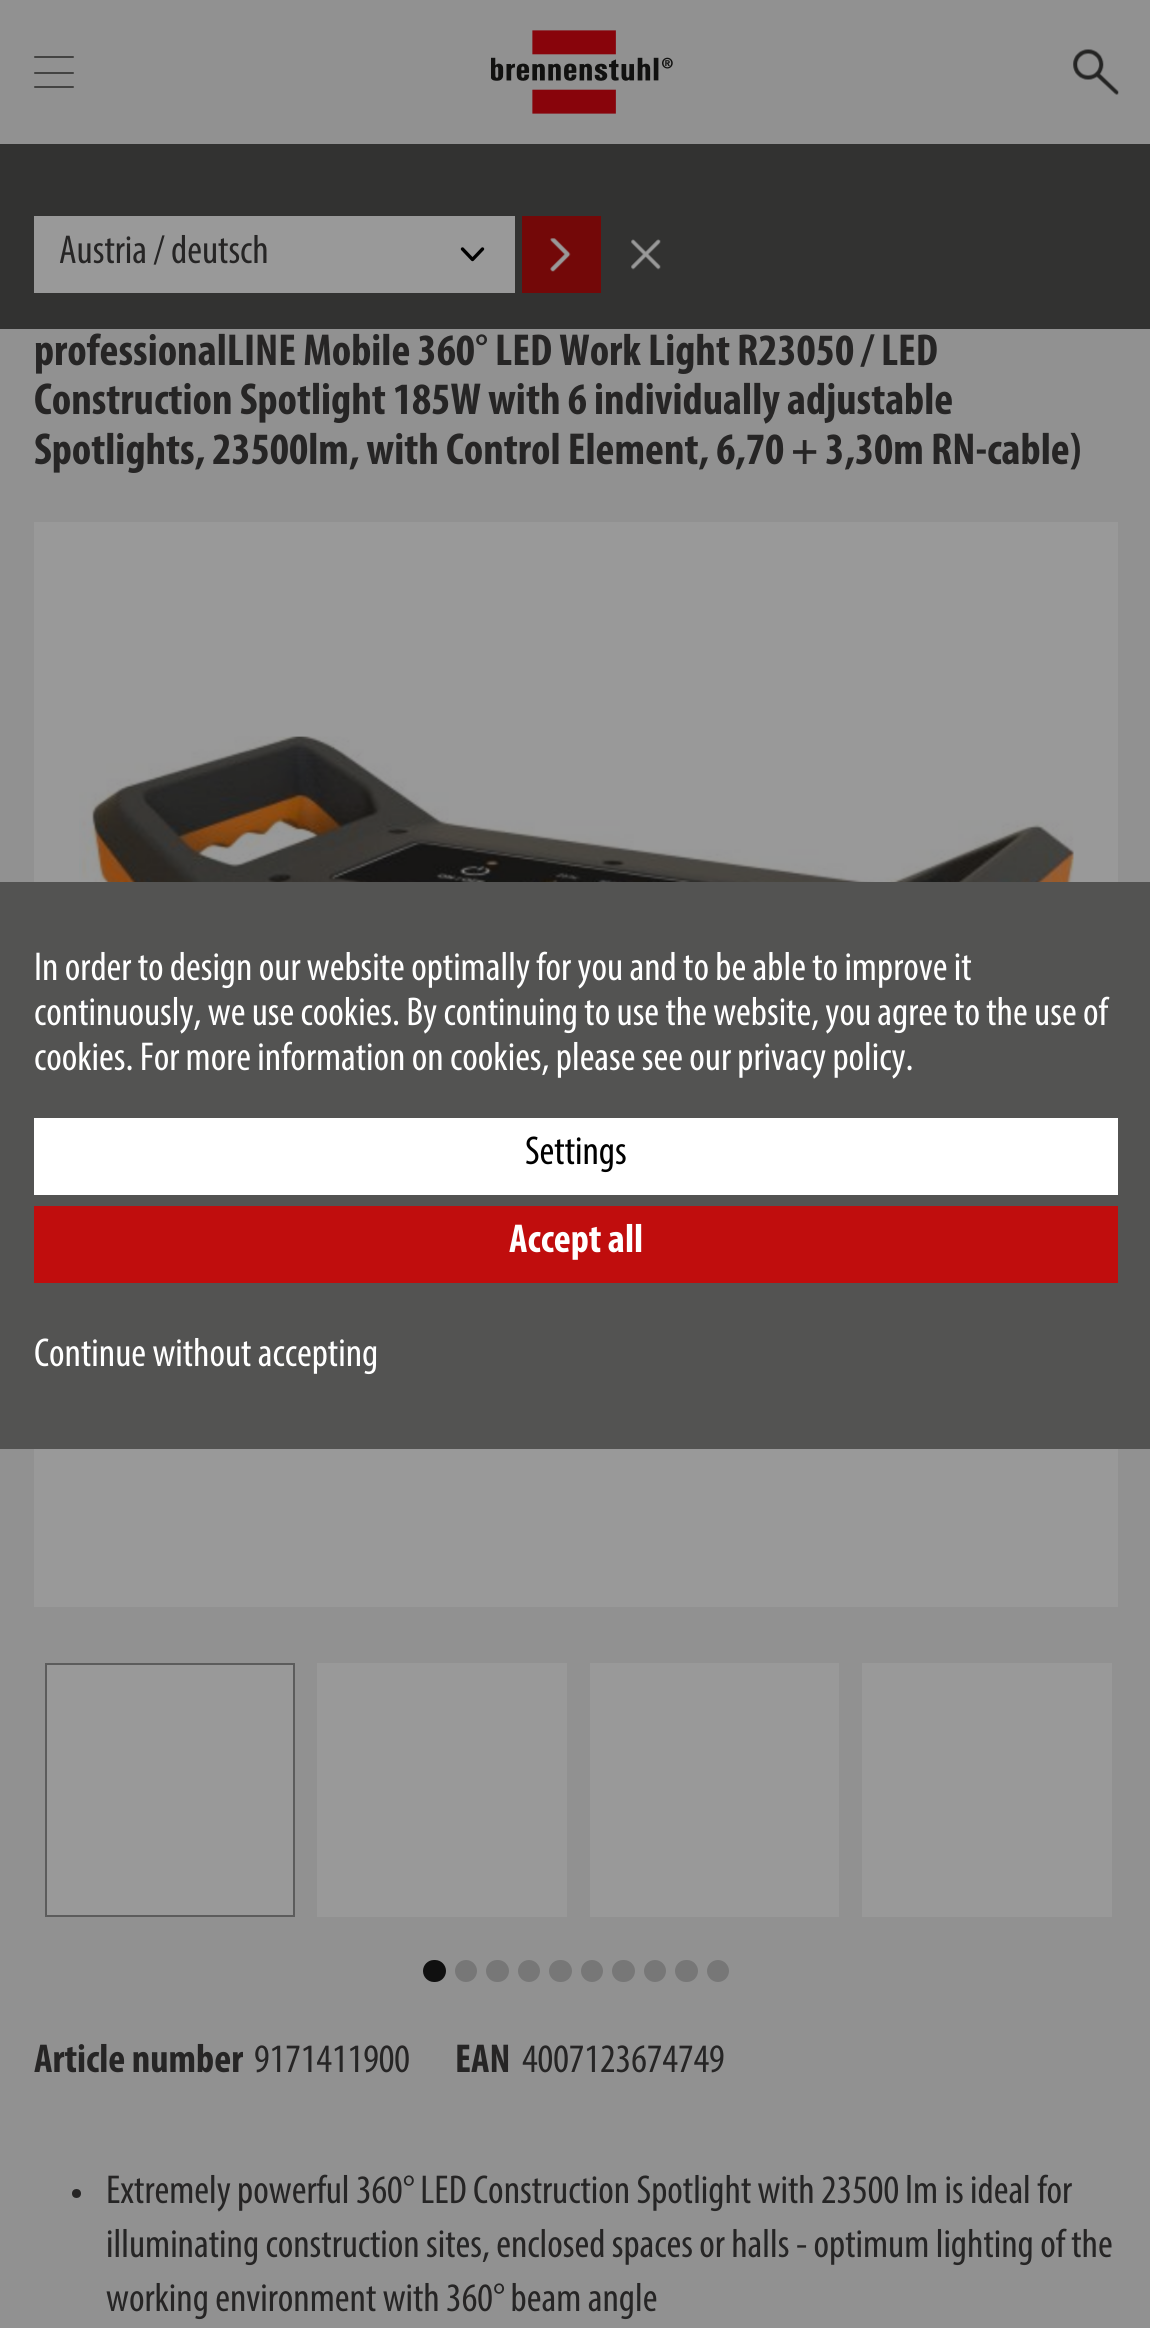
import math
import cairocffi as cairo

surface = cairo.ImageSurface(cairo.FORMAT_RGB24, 1150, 2328)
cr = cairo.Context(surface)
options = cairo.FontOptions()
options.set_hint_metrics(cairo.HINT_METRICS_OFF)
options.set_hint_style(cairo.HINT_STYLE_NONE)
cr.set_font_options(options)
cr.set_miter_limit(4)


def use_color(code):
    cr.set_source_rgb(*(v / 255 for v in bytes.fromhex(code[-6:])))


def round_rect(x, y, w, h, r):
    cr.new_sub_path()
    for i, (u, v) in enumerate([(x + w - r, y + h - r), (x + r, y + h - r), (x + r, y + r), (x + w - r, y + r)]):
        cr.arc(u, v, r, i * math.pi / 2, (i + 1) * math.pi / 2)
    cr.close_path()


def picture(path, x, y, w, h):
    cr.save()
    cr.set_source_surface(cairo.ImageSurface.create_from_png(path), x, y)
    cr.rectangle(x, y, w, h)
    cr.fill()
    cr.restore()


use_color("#919191")
cr.paint()
use_color("#434342")
round_rect(34, 56, 40, 2, 1)
cr.fill()
round_rect(34, 72, 40, 2, 1)
cr.fill()
round_rect(34, 86, 40, 2, 1)
cr.fill()
picture("img1.png", 491, 30, 182, 84)
picture("img2.png", 1073, 49, 46, 46)
use_color("#323231")
cr.rectangle(0, 144, 1150, 185)
cr.fill()
use_color("#999999")
cr.rectangle(34, 216, 481, 77)
cr.fill()
cr.new_path()
cr.move_to(462.5, 249)
cr.line_to(472.5, 259.5)
cr.line_to(482.5, 249)
use_color("#000000")
cr.set_line_width(3.4)
cr.set_line_cap(cairo.LINE_CAP_ROUND)
cr.set_line_join(cairo.LINE_JOIN_ROUND)
cr.stroke()
cr.select_font_face("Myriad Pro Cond")
cr.set_font_size(40.5)
use_color("#262525")
cr.move_to(59, 263)
cr.show_text("Austria / deutsch")
use_color("#730808")
cr.rectangle(522, 216, 79, 77)
cr.fill()
picture("img3.png", 550, 238, 21, 34)
picture("img4.png", 631, 239, 30, 31)
cr.select_font_face("Myriad Pro Cond", cairo.FONT_SLANT_NORMAL, cairo.FONT_WEIGHT_BOLD)
cr.set_font_size(45)
use_color("#262525")
cr.move_to(34, 365)
cr.show_text("professionalLINE Mobile 360° LED Work Light R23050 / LED")
cr.move_to(34, 414)
cr.show_text("Construction Spotlight 185W with 6 individually adjustable")
cr.move_to(34, 464)
cr.show_text("Spotlights, 23500lm, with Control Element, 6,70 + 3,30m RN-cable)")
use_color("#999999")
cr.rectangle(34, 522, 1084, 1085)
cr.fill()
picture("img5.png", 79, 736, 995, 146)
cr.rectangle(46, 1664, 248, 252)
cr.fill_preserve()
use_color("#5c5c5c")
cr.set_line_width(2)
cr.set_line_cap(cairo.LINE_CAP_BUTT)
cr.set_line_join(cairo.LINE_JOIN_MITER)
cr.stroke()
use_color("#999999")
cr.rectangle(317, 1663, 250, 254)
cr.fill()
cr.rectangle(590, 1663, 249, 254)
cr.fill()
cr.rectangle(862, 1663, 250, 254)
cr.fill()
use_color("#101010")
round_rect(423, 1960, 23, 22, 11)
cr.fill()
use_color("#777777")
cr.arc(466, 1971, 11, 0, 2 * math.pi)
cr.fill()
round_rect(486, 1960, 23, 22, 11)
cr.fill()
cr.arc(529, 1971, 11, 0, 2 * math.pi)
cr.fill()
round_rect(549, 1960, 23, 22, 11)
cr.fill()
cr.arc(592, 1971, 11, 0, 2 * math.pi)
cr.fill()
round_rect(612, 1960, 23, 22, 11)
cr.fill()
cr.arc(655, 1971, 11, 0, 2 * math.pi)
cr.fill()
round_rect(675, 1960, 23, 22, 11)
cr.fill()
cr.arc(718, 1971, 11, 0, 2 * math.pi)
cr.fill()
cr.set_font_size(40.5)
use_color("#262525")
cr.move_to(34, 2072)
cr.show_text("Article number")
cr.select_font_face("Myriad Pro Cond")
cr.move_to(254, 2072)
cr.show_text("9171411900")
cr.select_font_face("Myriad Pro Cond", cairo.FONT_SLANT_NORMAL, cairo.FONT_WEIGHT_BOLD)
cr.move_to(455, 2072)
cr.show_text("EAN")
cr.select_font_face("Myriad Pro Cond")
cr.move_to(522, 2072)
cr.show_text("4007123674749")
cr.new_path()
cr.arc(76.5, 2193.5, 4.5, 0, 2 * math.pi)
cr.fill()
cr.move_to(106, 2203)
cr.show_text("Extremely powerful 360° LED Construction Spotlight with 23500 lm is ideal for")
cr.move_to(106, 2257)
cr.show_text("illuminating construction sites, enclosed spaces or halls - optimum lighting of the")
cr.move_to(106, 2311)
cr.show_text("working environment with 360° beam angle")
use_color("#535352")
cr.rectangle(0, 882, 1150, 567)
cr.fill()
use_color("#ffffff")
cr.move_to(34, 980)
cr.show_text("In order to design our website optimally for you and to be able to improve it")
cr.move_to(34, 1025)
cr.show_text("continuously, we use cookies. By continuing to use the website, you agree to the use of")
cr.move_to(34, 1070)
cr.show_text("cookies. For more information on cookies, please see our privacy policy.")
cr.rectangle(34, 1118, 1084, 77)
cr.fill()
use_color("#000000")
cr.move_to(525, 1164)
cr.show_text("Settings")
use_color("#c00d0d")
cr.rectangle(34, 1206, 1084, 77)
cr.fill()
cr.select_font_face("Myriad Pro Cond", cairo.FONT_SLANT_NORMAL, cairo.FONT_WEIGHT_BOLD)
use_color("#ffffff")
cr.move_to(509, 1252)
cr.show_text("Accept all")
cr.select_font_face("Myriad Pro Cond")
cr.move_to(34, 1366)
cr.show_text("Continue without accepting")
surface.write_to_png("result.png")
